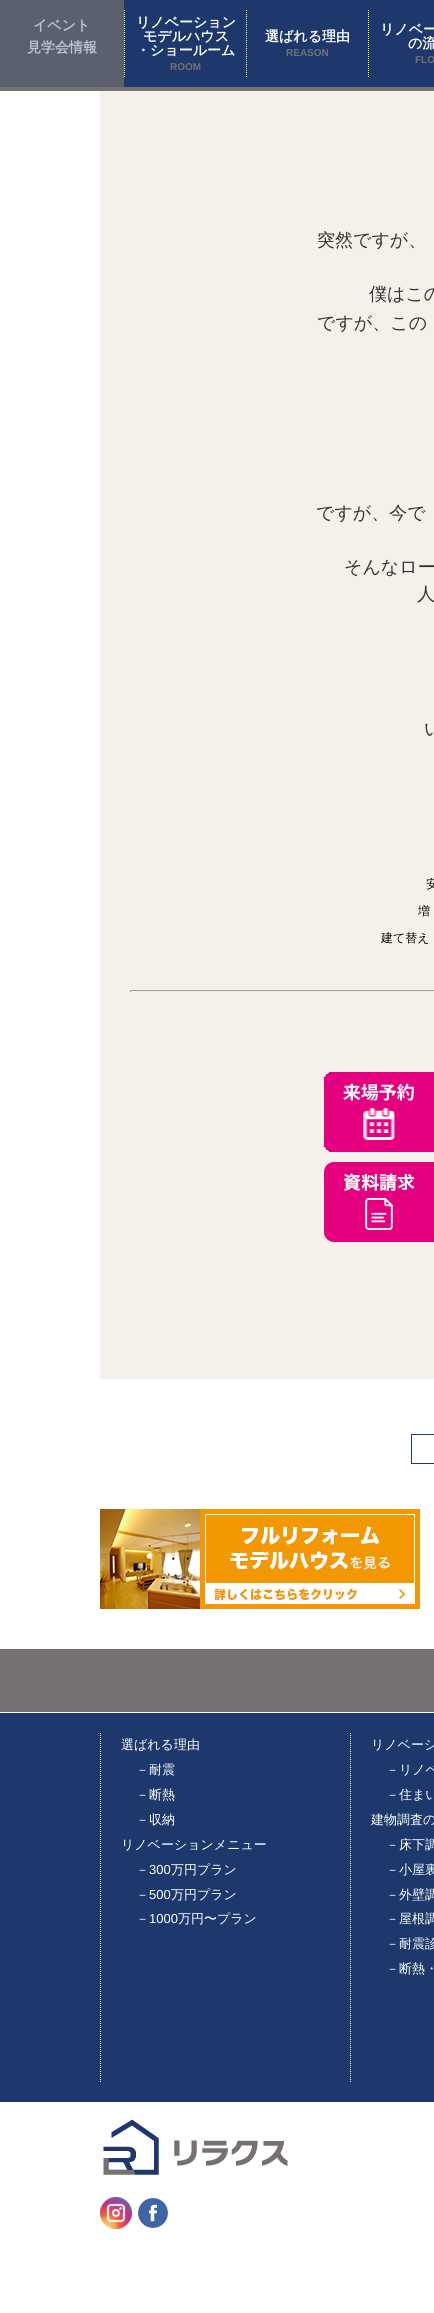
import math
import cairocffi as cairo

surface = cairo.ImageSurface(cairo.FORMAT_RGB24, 434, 2313)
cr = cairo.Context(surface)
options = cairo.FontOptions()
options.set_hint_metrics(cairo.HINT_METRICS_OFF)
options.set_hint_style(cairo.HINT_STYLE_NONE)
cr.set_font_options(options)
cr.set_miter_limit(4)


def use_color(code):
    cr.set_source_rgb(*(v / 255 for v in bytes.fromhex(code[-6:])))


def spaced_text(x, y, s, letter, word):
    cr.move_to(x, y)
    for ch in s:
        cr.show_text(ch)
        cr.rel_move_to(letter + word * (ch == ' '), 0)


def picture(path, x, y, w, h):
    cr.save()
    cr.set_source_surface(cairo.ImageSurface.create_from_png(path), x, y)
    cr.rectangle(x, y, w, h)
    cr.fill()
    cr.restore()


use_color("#ffffff")
cr.paint()
use_color("#1c386c")
cr.rectangle(0, 0, 434, 87)
cr.fill()
use_color("#767170")
cr.rectangle(0, 87, 434, 4)
cr.fill()
use_color("#5b606f")
cr.rectangle(0, 0, 124, 77)
cr.fill()
cr.select_font_face("WenQuanYi Zen Hei", cairo.FONT_SLANT_NORMAL, cairo.FONT_WEIGHT_BOLD)
cr.set_font_size(14)
use_color("#bbc3d3")
cr.move_to(33, 30)
cr.show_text("イベント")
cr.move_to(27, 52)
cr.show_text("見学会情報")
cr.set_source_rgba(0.463, 0.443, 0.439, 0.7)
cr.new_path()
cr.move_to(0, 77)
cr.line_to(124, 77)
cr.line_to(124, 86)
cr.curve_to(124, 88, 122, 90, 120, 90)
cr.line_to(4, 90)
cr.curve_to(2, 90, 0, 88, 0, 86)
cr.close_path()
cr.fill()
cr.new_path()
cr.move_to(124.5, 10)
cr.line_to(124.5, 77)
use_color("#ffffff")
cr.set_line_width(1)
cr.set_dash([1, 1])
cr.stroke()
cr.move_to(136, 27)
cr.show_text("リノベーション")
cr.move_to(143, 41)
cr.show_text("モデルハウス")
cr.move_to(136, 55)
cr.show_text("・ショールーム")
cr.select_font_face("Liberation Sans", cairo.FONT_SLANT_NORMAL, cairo.FONT_WEIGHT_BOLD)
cr.set_font_size(10)
use_color("#767170")
cr.move_to(170, 70)
cr.show_text("ROOM")
cr.new_path()
cr.move_to(246.5, 10)
cr.line_to(246.5, 77)
use_color("#ffffff")
cr.stroke()
cr.select_font_face("WenQuanYi Zen Hei", cairo.FONT_SLANT_NORMAL, cairo.FONT_WEIGHT_BOLD)
cr.set_font_size(14)
cr.move_to(265, 41)
cr.show_text("選ばれる理由")
cr.select_font_face("Liberation Sans", cairo.FONT_SLANT_NORMAL, cairo.FONT_WEIGHT_BOLD)
cr.set_font_size(10)
use_color("#767170")
cr.move_to(286, 56)
cr.show_text("REASON")
cr.new_path()
cr.move_to(368.5, 10)
cr.line_to(368.5, 77)
use_color("#ffffff")
cr.stroke()
cr.select_font_face("WenQuanYi Zen Hei", cairo.FONT_SLANT_NORMAL, cairo.FONT_WEIGHT_BOLD)
cr.set_font_size(14)
cr.move_to(380, 34)
cr.show_text("リノベー")
cr.move_to(408, 48)
cr.show_text("の流")
cr.select_font_face("Liberation Sans", cairo.FONT_SLANT_NORMAL, cairo.FONT_WEIGHT_BOLD)
cr.set_font_size(10)
use_color("#767170")
cr.move_to(415, 63)
cr.show_text("FLO")
use_color("#f5f0ea")
cr.rectangle(100, 91, 334, 1288)
cr.fill()
cr.select_font_face("WenQuanYi Zen Hei Medium")
cr.set_font_size(18)
use_color("#333333")
cr.move_to(317, 246)
cr.show_text("突然ですが、")
cr.move_to(369, 300)
cr.show_text("僕はこの")
cr.move_to(317, 329)
cr.show_text("ですが、この")
cr.move_to(316, 519)
cr.show_text("ですが、今で")
cr.move_to(344, 573)
cr.show_text("そんなロー")
cr.move_to(417, 600)
cr.show_text("人")
cr.move_to(424, 735)
cr.show_text("い")
cr.set_font_size(12)
use_color("#000000")
spaced_text(426, 888, "安", 0, -1)
cr.move_to(418, 915)
cr.show_text("増")
cr.move_to(381, 942)
cr.show_text("建て替え")
use_color("#9f9f9f")
cr.rectangle(130, 990, 304, 1)
cr.fill()
use_color("#eeeeee")
cr.rectangle(130, 991, 304, 1)
cr.fill()
use_color("#9f9f9f")
cr.rectangle(130, 990, 1, 2)
cr.fill()
cr.rectangle(411.5, 1434.5, 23, 29)
use_color("#1c386c")
cr.set_dash([])
cr.stroke()
picture("img1.png", 324, 1072, 110, 80)
picture("img2.png", 324, 1162, 110, 80)
picture("img3.png", 100, 1509, 320, 100)
use_color("#767170")
cr.rectangle(0, 1649, 434, 63)
cr.fill()
use_color("#1c386c")
cr.rectangle(0, 1713, 434, 389)
cr.fill()
cr.new_path()
cr.move_to(100.5, 1733)
cr.line_to(100.5, 2082)
use_color("#ffffff")
cr.set_dash([1, 1])
cr.stroke()
cr.set_font_size(13)
cr.move_to(121, 1749)
cr.show_text("選ばれる理由")
cr.move_to(136, 1774)
cr.show_text("－耐震")
cr.move_to(136, 1799)
cr.show_text("－断熱")
cr.move_to(136, 1824)
cr.show_text("－収納")
cr.move_to(121, 1849)
cr.show_text("リノベーションメニュー")
cr.move_to(136, 1874)
cr.show_text("－")
cr.select_font_face("Liberation Sans")
cr.move_to(149, 1874)
cr.show_text("300")
cr.select_font_face("WenQuanYi Zen Hei Medium")
cr.move_to(171, 1874)
cr.show_text("万円プラン")
cr.move_to(136, 1899)
cr.show_text("－")
cr.select_font_face("Liberation Sans")
cr.move_to(149, 1899)
cr.show_text("500")
cr.select_font_face("WenQuanYi Zen Hei Medium")
cr.move_to(171, 1899)
cr.show_text("万円プラン")
cr.move_to(136, 1923)
cr.show_text("－")
cr.select_font_face("Liberation Sans")
cr.move_to(149, 1923)
cr.show_text("1000")
cr.select_font_face("WenQuanYi Zen Hei Medium")
cr.move_to(178, 1923)
cr.show_text("万円〜プラン")
cr.new_path()
cr.move_to(350.5, 1733)
cr.line_to(350.5, 2082)
cr.stroke()
cr.move_to(371, 1749)
cr.show_text("リノベーシ")
cr.move_to(386, 1774)
cr.show_text("－リノベ")
cr.move_to(386, 1799)
cr.show_text("－住まい")
cr.move_to(371, 1824)
cr.show_text("建物調査の")
cr.move_to(386, 1849)
cr.show_text("－床下調")
cr.move_to(386, 1874)
cr.show_text("－小屋裏")
cr.move_to(386, 1899)
cr.show_text("－外壁調")
cr.move_to(386, 1923)
cr.show_text("－屋根調")
cr.move_to(386, 1948)
cr.show_text("－耐震診")
cr.move_to(386, 1973)
cr.show_text("－断熱・")
picture("img4.png", 103, 2119, 185, 56)
picture("img5.png", 100, 2197, 32, 32)
picture("img6.png", 138, 2198, 30, 30)
surface.write_to_png("result.png")
